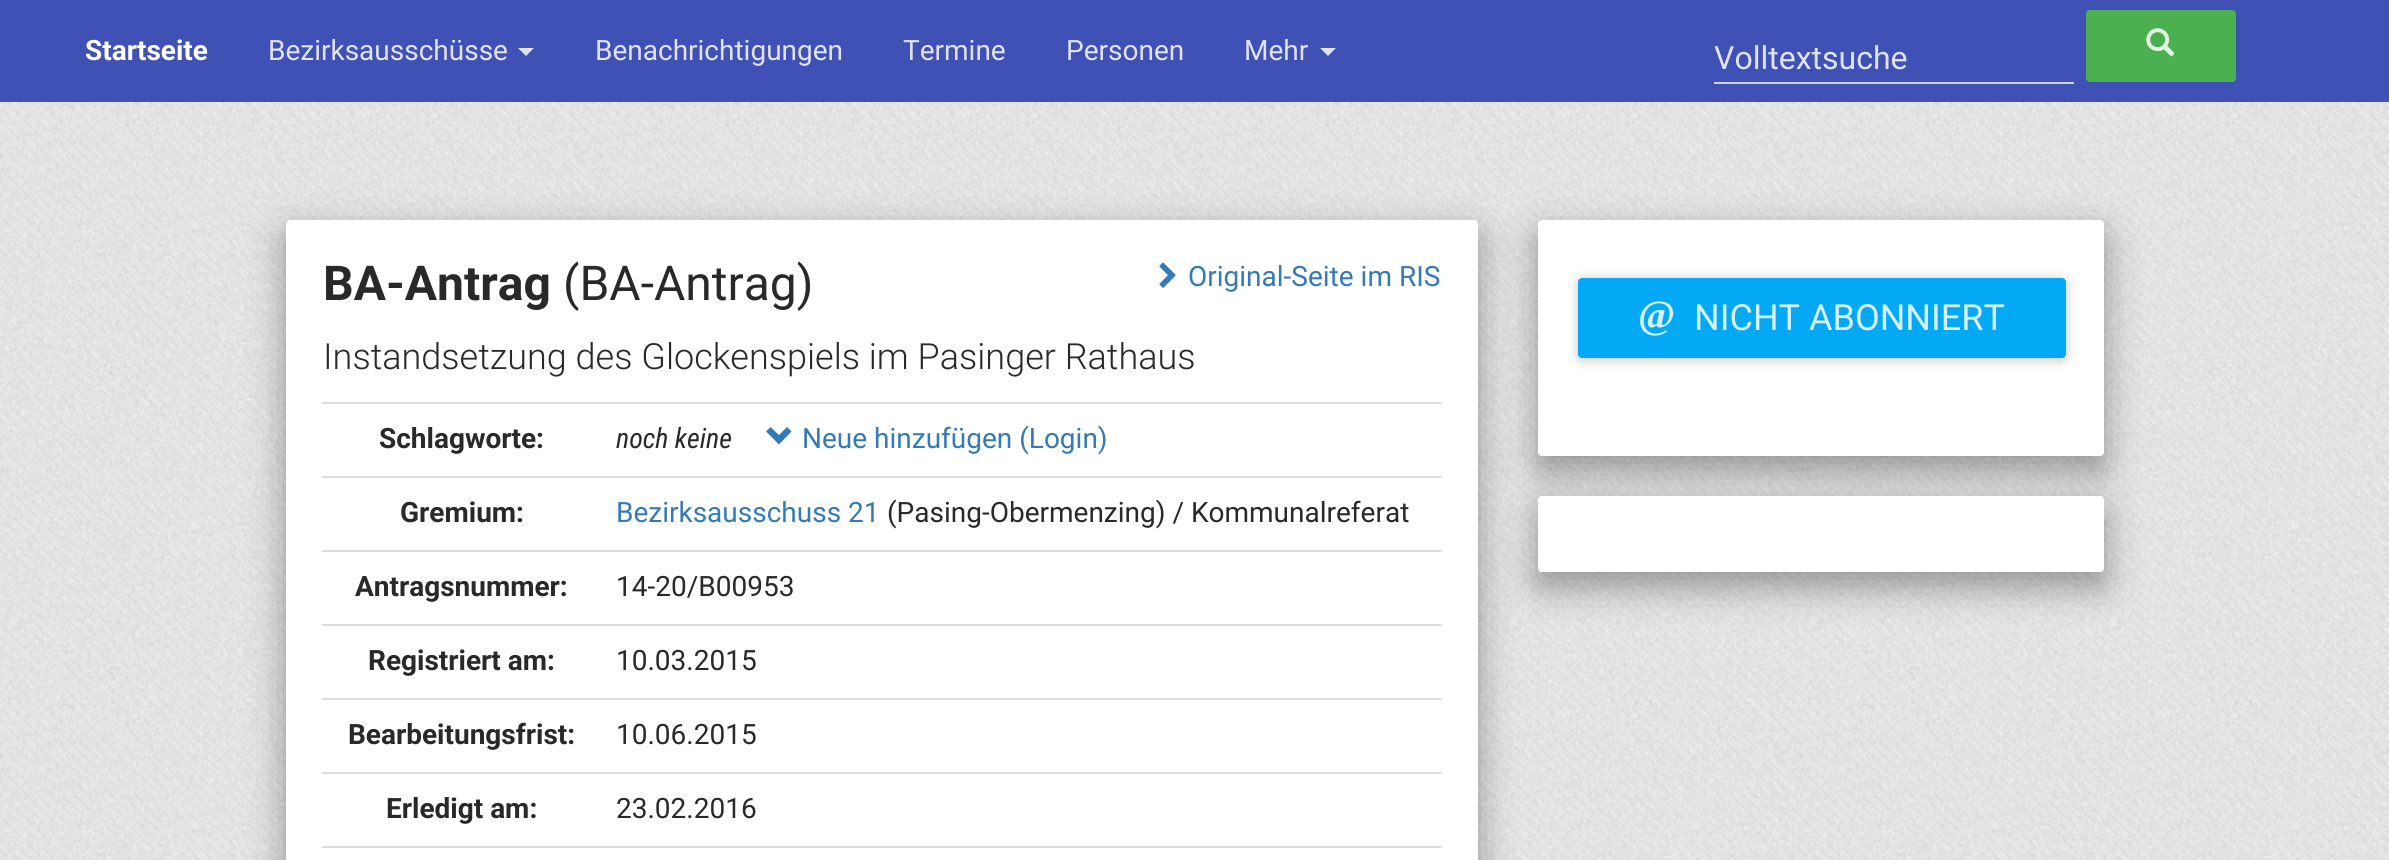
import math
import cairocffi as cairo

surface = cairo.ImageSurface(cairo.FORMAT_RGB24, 2389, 860)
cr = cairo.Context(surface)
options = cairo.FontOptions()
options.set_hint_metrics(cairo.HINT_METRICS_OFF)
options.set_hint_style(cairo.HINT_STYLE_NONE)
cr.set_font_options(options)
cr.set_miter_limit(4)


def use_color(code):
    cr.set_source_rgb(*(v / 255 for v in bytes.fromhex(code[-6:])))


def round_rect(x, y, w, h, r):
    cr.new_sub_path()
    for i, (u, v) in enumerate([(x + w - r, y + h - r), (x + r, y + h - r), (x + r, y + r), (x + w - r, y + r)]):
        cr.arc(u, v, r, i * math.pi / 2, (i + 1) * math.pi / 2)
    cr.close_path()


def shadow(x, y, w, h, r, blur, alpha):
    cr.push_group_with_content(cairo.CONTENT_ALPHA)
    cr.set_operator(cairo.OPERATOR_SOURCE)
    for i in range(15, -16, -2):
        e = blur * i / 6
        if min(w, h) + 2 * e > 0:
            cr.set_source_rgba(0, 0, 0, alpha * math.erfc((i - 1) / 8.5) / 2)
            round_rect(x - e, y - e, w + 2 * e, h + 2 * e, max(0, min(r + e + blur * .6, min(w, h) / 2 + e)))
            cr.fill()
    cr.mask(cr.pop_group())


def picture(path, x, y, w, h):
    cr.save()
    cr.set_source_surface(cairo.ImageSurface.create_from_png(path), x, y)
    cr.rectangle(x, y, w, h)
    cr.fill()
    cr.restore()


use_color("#ffffff")
cr.paint()
picture("img1.png", 0, 102, 2389, 758)
use_color("#3f51b5")
cr.rectangle(0, 0, 2389, 102)
cr.fill()
cr.select_font_face("Roboto", cairo.FONT_SLANT_NORMAL, cairo.FONT_WEIGHT_BOLD)
cr.set_font_size(28)
use_color("#ffffff")
cr.move_to(85, 60)
cr.show_text("Startseite")
cr.select_font_face("Roboto")
use_color("#e0e3f3")
cr.move_to(268, 60)
cr.show_text("Bezirksausschüsse")
cr.new_path()
cr.move_to(518, 48)
cr.line_to(534, 48)
cr.line_to(526, 56)
cr.close_path()
cr.fill()
cr.move_to(595, 60)
cr.show_text("Benachrichtigungen")
cr.move_to(903, 60)
cr.show_text("Termine")
cr.move_to(1066, 60)
cr.show_text("Personen")
cr.move_to(1244, 60)
cr.show_text("Mehr")
cr.new_path()
cr.move_to(1320, 48)
cr.line_to(1336, 48)
cr.line_to(1328, 56)
cr.close_path()
cr.fill()
use_color("#d2d2d2")
cr.rectangle(1714, 82, 360, 2)
cr.fill()
cr.set_font_size(32)
use_color("#e0e3f3")
cr.move_to(1714, 69)
cr.show_text("Volltextsuche")
use_color("#4caf50")
round_rect(2086, 10, 150, 72, 4)
cr.fill()
picture("img2.png", 2146, 28, 29, 29)
use_color("#000000")
shadow(286, 232, 1192, 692, 4, 20, 0.19)
shadow(286, 236, 1192, 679, 4, 17, 0.2)
use_color("#ffffff")
round_rect(286, 220, 1192, 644, 4)
cr.fill()
cr.select_font_face("Roboto", cairo.FONT_SLANT_NORMAL, cairo.FONT_WEIGHT_BOLD)
cr.set_font_size(48)
use_color("#292929")
cr.move_to(323, 300)
cr.show_text("BA-Antrag")
cr.select_font_face("Roboto")
cr.move_to(563, 300)
cr.show_text("(BA-Antrag)")
picture("img3.png", 1159, 262, 17, 26)
cr.set_font_size(28)
use_color("#337ab7")
cr.move_to(1188, 286)
cr.show_text("Original-Seite im RIS")
cr.select_font_face("Roboto Light")
cr.set_font_size(36)
use_color("#292929")
cr.move_to(323, 369)
cr.show_text("Instandsetzung des Glockenspiels im Pasinger Rathaus")
cr.select_font_face("Roboto", cairo.FONT_SLANT_NORMAL, cairo.FONT_WEIGHT_BOLD)
cr.set_font_size(28)
cr.move_to(379, 448)
cr.show_text("Schlagworte:")
use_color("#dddddd")
cr.rectangle(322, 402, 1120, 2)
cr.fill()
cr.select_font_face("Roboto Condensed", cairo.FONT_SLANT_ITALIC)
use_color("#292929")
cr.move_to(616, 448)
cr.show_text("noch keine")
use_color("#337ab7")
cr.new_path()
cr.move_to(791.5, 431.5)
cr.line_to(779, 444.5)
cr.line_to(766, 431.5)
cr.line_to(770.5, 427)
cr.line_to(779, 435)
cr.line_to(787, 427)
cr.close_path()
cr.fill()
cr.select_font_face("Roboto")
cr.move_to(802, 448)
cr.show_text("Neue hinzufügen (Login)")
cr.select_font_face("Roboto", cairo.FONT_SLANT_NORMAL, cairo.FONT_WEIGHT_BOLD)
use_color("#292929")
cr.move_to(400, 522)
cr.show_text("Gremium:")
use_color("#dddddd")
cr.rectangle(322, 476, 1120, 2)
cr.fill()
cr.select_font_face("Roboto")
use_color("#337ab7")
cr.move_to(616, 522)
cr.show_text("Bezirksausschuss 21")
use_color("#292929")
cr.move_to(887, 522)
cr.show_text("(Pasing-Obermenzing) / Kommunalreferat")
cr.select_font_face("Roboto", cairo.FONT_SLANT_NORMAL, cairo.FONT_WEIGHT_BOLD)
cr.move_to(355, 596)
cr.show_text("Antragsnummer:")
use_color("#dddddd")
cr.rectangle(322, 550, 1120, 2)
cr.fill()
cr.select_font_face("Roboto")
use_color("#292929")
cr.move_to(616, 596)
cr.show_text("14-20/B00953")
cr.select_font_face("Roboto", cairo.FONT_SLANT_NORMAL, cairo.FONT_WEIGHT_BOLD)
cr.move_to(368, 670)
cr.show_text("Registriert am:")
use_color("#dddddd")
cr.rectangle(322, 624, 1120, 2)
cr.fill()
cr.select_font_face("Roboto")
use_color("#292929")
cr.move_to(616, 670)
cr.show_text("10.03.2015")
cr.select_font_face("Roboto", cairo.FONT_SLANT_NORMAL, cairo.FONT_WEIGHT_BOLD)
cr.move_to(348, 744)
cr.show_text("Bearbeitungsfrist:")
use_color("#dddddd")
cr.rectangle(322, 698, 1120, 2)
cr.fill()
cr.select_font_face("Roboto")
use_color("#292929")
cr.move_to(616, 744)
cr.show_text("10.06.2015")
cr.select_font_face("Roboto", cairo.FONT_SLANT_NORMAL, cairo.FONT_WEIGHT_BOLD)
cr.move_to(386, 818)
cr.show_text("Erledigt am:")
use_color("#dddddd")
cr.rectangle(322, 772, 1120, 2)
cr.fill()
cr.select_font_face("Roboto")
use_color("#292929")
cr.move_to(616, 818)
cr.show_text("23.02.2016")
use_color("#dddddd")
cr.rectangle(322, 846, 1120, 2)
cr.fill()
use_color("#000000")
shadow(1538, 232, 566, 236, 4, 20, 0.19)
shadow(1538, 236, 566, 236, 4, 17, 0.2)
use_color("#ffffff")
round_rect(1538, 220, 566, 236, 4)
cr.fill()
use_color("#000000")
shadow(1578, 280, 488, 80, 4, 6, 0.12)
shadow(1578, 280, 488, 80, 4, 6, 0.12)
use_color("#03a9f4")
round_rect(1578, 278, 488, 80, 4)
cr.fill()
cr.select_font_face("Liberation Serif", cairo.FONT_SLANT_NORMAL, cairo.FONT_WEIGHT_BOLD)
cr.set_font_size(40)
use_color("#d7f1fd")
cr.move_to(1638, 328)
cr.show_text("@")
cr.select_font_face("Roboto")
cr.set_font_size(36)
cr.move_to(1694, 330)
cr.show_text("NICHT ABONNIERT")
use_color("#000000")
shadow(1538, 508, 566, 76, 4, 20, 0.19)
shadow(1538, 512, 566, 76, 4, 17, 0.2)
use_color("#ffffff")
round_rect(1538, 496, 566, 76, 4)
cr.fill()
surface.write_to_png("result.png")
